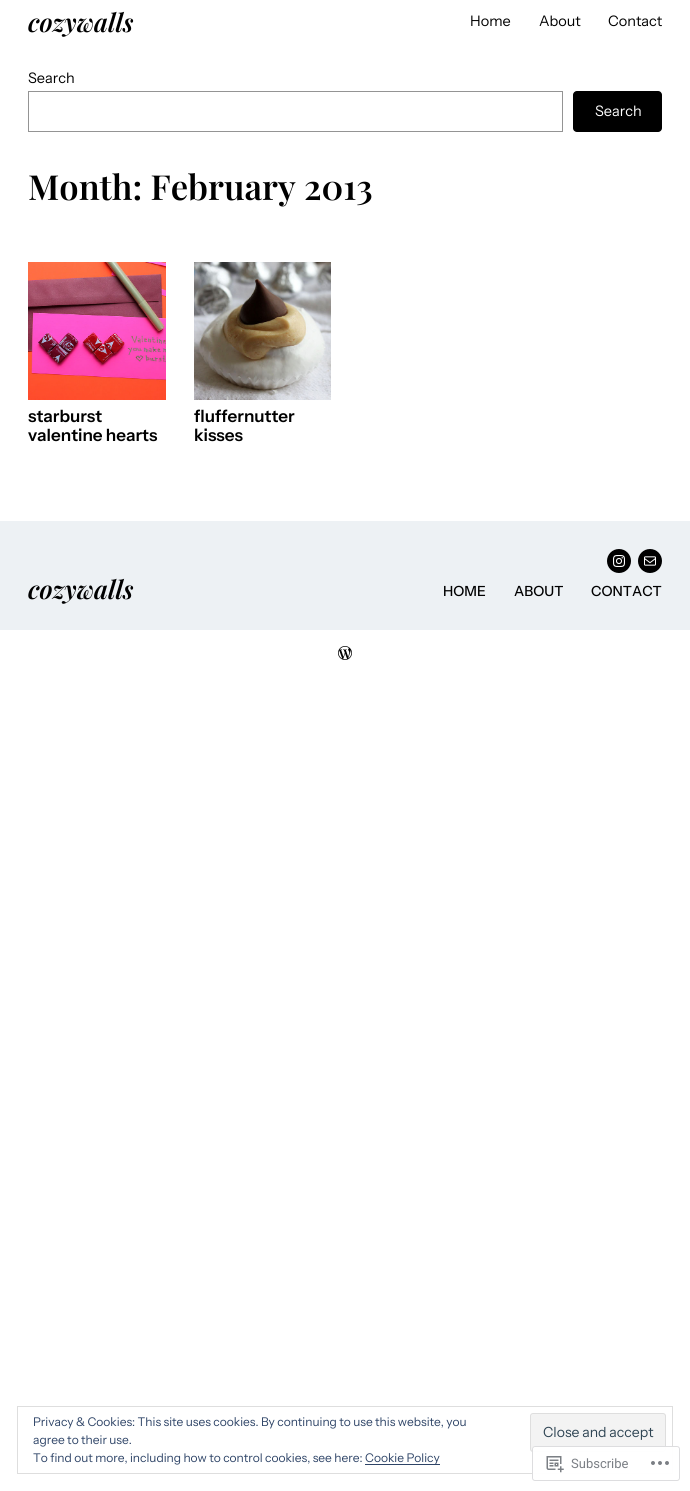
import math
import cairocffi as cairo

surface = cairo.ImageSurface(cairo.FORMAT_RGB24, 690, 1491)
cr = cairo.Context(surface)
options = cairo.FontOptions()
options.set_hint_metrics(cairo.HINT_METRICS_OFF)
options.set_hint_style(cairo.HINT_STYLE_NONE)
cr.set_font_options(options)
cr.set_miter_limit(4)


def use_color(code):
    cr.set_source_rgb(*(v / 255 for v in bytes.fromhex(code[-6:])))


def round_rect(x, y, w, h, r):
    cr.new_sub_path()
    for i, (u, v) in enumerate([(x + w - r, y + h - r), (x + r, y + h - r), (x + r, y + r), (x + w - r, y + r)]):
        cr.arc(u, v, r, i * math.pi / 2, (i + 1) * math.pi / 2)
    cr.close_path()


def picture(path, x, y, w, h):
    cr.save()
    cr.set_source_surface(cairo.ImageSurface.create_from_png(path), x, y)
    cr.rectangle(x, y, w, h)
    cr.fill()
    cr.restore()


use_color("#ffffff")
cr.paint()
cr.select_font_face("Playfair Display SemiBold", cairo.FONT_SLANT_ITALIC)
cr.set_font_size(25.5)
use_color("#000000")
cr.move_to(28, 32)
cr.show_text("cozywalls")
cr.select_font_face("Instrument Sans")
cr.set_font_size(14.5)
cr.move_to(470, 26)
cr.show_text("Home")
cr.move_to(539, 26)
cr.show_text("About")
cr.move_to(608, 26)
cr.show_text("Contact")
cr.move_to(28, 83)
cr.show_text("Search")
cr.rectangle(28.5, 91.5, 534, 40)
use_color("#949494")
cr.set_line_width(1)
cr.stroke()
use_color("#000000")
round_rect(573, 91, 89, 41, 4)
cr.fill()
use_color("#ffffff")
cr.move_to(595, 116)
cr.show_text("Search")
cr.select_font_face("Playfair Display SemiBold")
cr.set_font_size(34.5)
use_color("#000000")
cr.move_to(28, 200)
cr.show_text("Month: February 2013")
picture("img1.png", 28, 262, 138, 138)
cr.select_font_face("Instrument Sans SemiBold")
cr.set_font_size(17)
cr.move_to(28, 422)
cr.show_text("starburst")
cr.move_to(28, 441)
cr.show_text("valentine hearts")
picture("img2.png", 194, 262, 137, 138)
cr.move_to(194, 422)
cr.show_text("fluffernutter")
cr.move_to(194, 441)
cr.show_text("kisses")
use_color("#edf1f4")
cr.rectangle(0, 521, 690, 109)
cr.fill()
cr.select_font_face("Playfair Display SemiBold", cairo.FONT_SLANT_ITALIC)
cr.set_font_size(25.5)
use_color("#000000")
cr.move_to(28, 599)
cr.show_text("cozywalls")
cr.new_path()
cr.arc(619, 561, 12, 0, 2 * math.pi)
cr.fill()
picture("img3.png", 613, 555, 12, 12)
cr.arc(650, 561, 12, 0, 2 * math.pi)
cr.fill()
picture("img4.png", 644, 556, 12, 10)
cr.select_font_face("Instrument Sans Medium")
cr.set_font_size(14)
cr.move_to(443, 596)
cr.show_text("HOME")
cr.move_to(514, 596)
cr.show_text("ABOUT")
cr.move_to(591, 596)
cr.show_text("CONTACT")
picture("img5.png", 338, 646, 14, 14)
cr.rectangle(17.5, 1406.5, 655, 67)
use_color("#dedede")
cr.stroke()
cr.select_font_face("Instrument Sans")
cr.set_font_size(12)
use_color("#2e4467")
cr.move_to(33, 1426)
cr.show_text("Privacy & Cookies: This site uses cookies. By continuing to use this website, you")
cr.move_to(33, 1444)
cr.show_text("agree to their use.")
use_color("#f3f3f3")
round_rect(530.5, 1413.5, 135, 38, 2.5)
cr.fill_preserve()
use_color("#dedede")
cr.stroke()
cr.set_font_size(14)
use_color("#2e4453")
cr.move_to(543, 1437)
cr.show_text("Close and accept")
cr.set_font_size(12)
use_color("#2e4467")
cr.move_to(33, 1462)
cr.show_text("To find out more, including how to control cookies, see here:")
cr.rectangle(365, 1464, 75, 1)
cr.fill()
cr.move_to(365, 1462)
cr.show_text("Cookie Policy")
cr.set_source_rgba(1, 1, 1, 0.98)
round_rect(532, 1446, 148, 35, 3)
cr.fill()
round_rect(532.5, 1446.5, 147, 34, 2.5)
cr.set_source_rgba(0.863, 0.863, 0.871, 0.98)
cr.stroke()
picture("img6.png", 546, 1456, 18, 17)
cr.select_font_face("Roboto")
cr.set_font_size(13)
use_color("#7b7f85")
cr.move_to(571, 1468)
cr.show_text("Subscribe")
picture("img7.png", 651, 1461, 18, 4)
surface.write_to_png("result.png")
